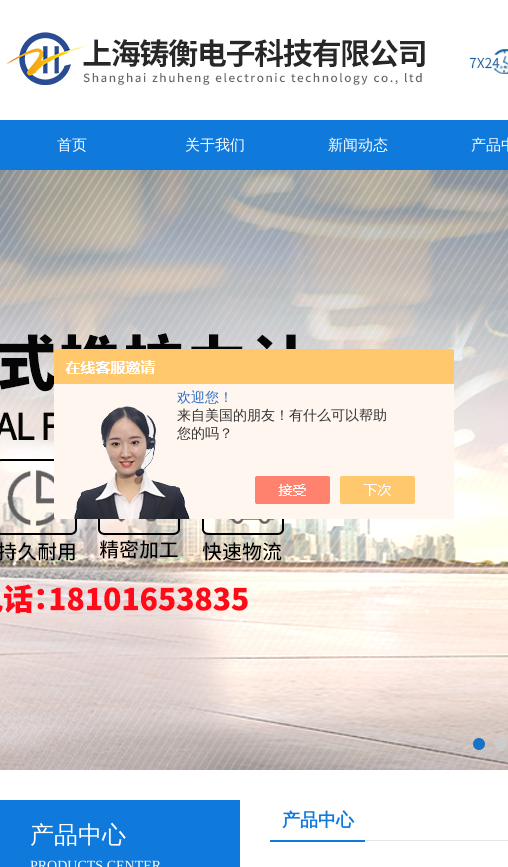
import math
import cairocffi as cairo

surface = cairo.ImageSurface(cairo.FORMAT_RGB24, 508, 867)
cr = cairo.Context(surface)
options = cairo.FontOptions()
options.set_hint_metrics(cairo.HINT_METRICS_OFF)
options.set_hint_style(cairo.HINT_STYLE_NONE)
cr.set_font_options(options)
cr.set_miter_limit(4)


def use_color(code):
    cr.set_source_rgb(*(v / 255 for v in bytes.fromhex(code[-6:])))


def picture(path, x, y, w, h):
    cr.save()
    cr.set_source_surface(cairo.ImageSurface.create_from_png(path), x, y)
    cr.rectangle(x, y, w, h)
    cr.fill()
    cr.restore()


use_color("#ffffff")
cr.paint()
picture("img1.png", 6, 32, 502, 54)
use_color("#0f7adb")
cr.rectangle(0, 120, 508, 50)
cr.fill()
cr.select_font_face("WenQuanYi Zen Hei Medium")
cr.set_font_size(15)
use_color("#ffffff")
cr.move_to(57, 150)
cr.show_text("首页")
cr.move_to(185, 150)
cr.show_text("关于我们")
cr.move_to(328, 150)
cr.show_text("新闻动态")
cr.move_to(471, 150)
cr.show_text("产品中")
picture("img2.png", 0, 170, 508, 600)
use_color("#1773c6")
cr.arc(479, 744, 6, 0, 2 * math.pi)
cr.fill()
use_color("#cccccc")
cr.arc(501, 744, 6, 0, 2 * math.pi)
cr.fill()
picture("img3.png", 54, 349, 400, 170)
cr.set_font_size(14)
use_color("#2e6ec6")
cr.move_to(177, 402)
cr.show_text("欢迎您！")
use_color("#333333")
cr.move_to(177, 420)
cr.show_text("来自美国的朋友！有什么可以帮助")
cr.move_to(177, 438)
cr.show_text("您的吗？")
use_color("#e5e5e5")
cr.rectangle(365, 840, 143, 1)
cr.fill()
use_color("#0f7adb")
cr.rectangle(270, 840, 95, 2)
cr.fill()
cr.select_font_face("WenQuanYi Zen Hei", cairo.FONT_SLANT_NORMAL, cairo.FONT_WEIGHT_BOLD)
cr.set_font_size(18)
cr.move_to(282, 826)
cr.show_text("产品中心")
cr.rectangle(0, 800, 240, 67)
cr.fill()
cr.select_font_face("WenQuanYi Zen Hei Medium")
cr.set_font_size(24)
use_color("#ffffff")
cr.move_to(30, 843)
cr.show_text("产品中心")
cr.select_font_face("Liberation Serif")
cr.set_font_size(14)
cr.move_to(30, 870)
cr.show_text("PRODUCTS CENTER")
surface.write_to_png("result.png")
